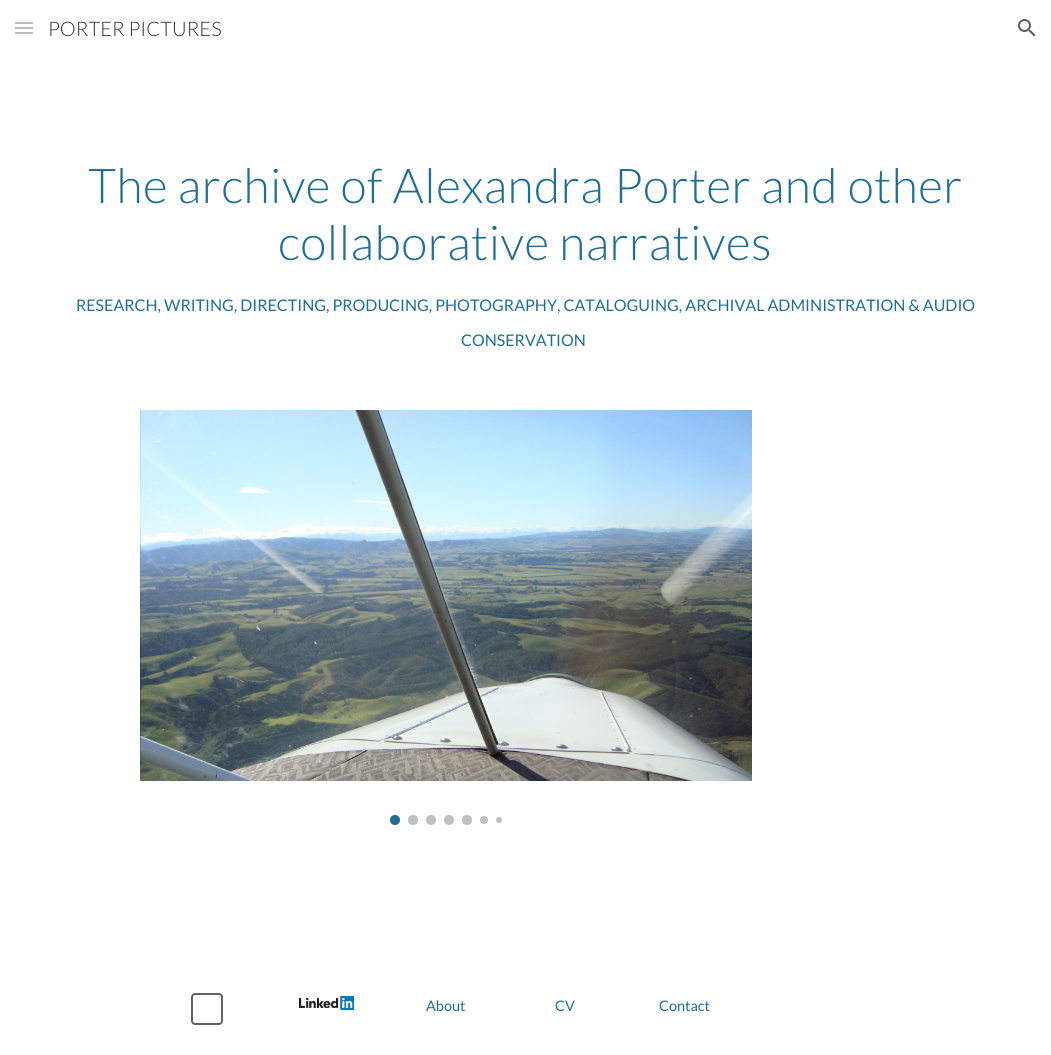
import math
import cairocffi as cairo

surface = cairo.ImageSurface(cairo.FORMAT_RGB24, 1051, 1055)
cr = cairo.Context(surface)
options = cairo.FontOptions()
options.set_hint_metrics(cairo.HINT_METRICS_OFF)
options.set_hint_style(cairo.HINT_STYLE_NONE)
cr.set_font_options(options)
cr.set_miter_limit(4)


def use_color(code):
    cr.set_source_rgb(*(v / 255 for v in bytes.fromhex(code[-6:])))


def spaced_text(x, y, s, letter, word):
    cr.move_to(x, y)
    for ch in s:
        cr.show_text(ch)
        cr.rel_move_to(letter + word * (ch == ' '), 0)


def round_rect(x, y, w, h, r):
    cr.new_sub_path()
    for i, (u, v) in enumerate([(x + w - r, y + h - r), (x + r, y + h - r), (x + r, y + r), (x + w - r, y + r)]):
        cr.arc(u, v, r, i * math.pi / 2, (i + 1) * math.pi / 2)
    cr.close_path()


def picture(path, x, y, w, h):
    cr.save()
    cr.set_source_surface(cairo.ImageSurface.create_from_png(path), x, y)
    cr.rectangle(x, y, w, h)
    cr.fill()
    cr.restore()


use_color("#ffffff")
cr.paint()
use_color("#bbbbbb")
cr.rectangle(15, 22, 18, 2)
cr.fill()
cr.rectangle(15, 27, 18, 2)
cr.fill()
cr.rectangle(15, 32, 18, 2)
cr.fill()
cr.select_font_face("Lato Light")
cr.set_font_size(20)
use_color("#333333")
cr.move_to(48, 36)
cr.show_text("PORTER PICTURES")
picture("img1.png", 1018, 19, 18, 18)
cr.set_font_size(48)
use_color("#226e93")
spaced_text(88, 203, "The archive of Alexandra Porter and other", 0.5, 0)
spaced_text(278, 260, "collaborative narratives", 0.5, 0)
cr.select_font_face("Lato")
cr.set_font_size(16)
cr.move_to(76, 311)
cr.show_text("RESEARCH, WRITING, DIRECTING, PRODUCING, PHOTOGRAPHY, CATALOGUING, ARCHIVAL ADMINISTRATION & AUDIO")
cr.move_to(461, 346)
cr.show_text("CONSERVATION")
picture("img2.png", 140, 410, 612, 371)
use_color("#1e6c93")
cr.arc(395, 820, 5, 0, 2 * math.pi)
cr.fill()
use_color("#bdc1c6")
cr.arc(413, 820, 5, 0, 2 * math.pi)
cr.fill()
cr.arc(431, 820, 5, 0, 2 * math.pi)
cr.fill()
cr.arc(449, 820, 5, 0, 2 * math.pi)
cr.fill()
cr.arc(467, 820, 5, 0, 2 * math.pi)
cr.fill()
cr.arc(484, 820, 4, 0, 2 * math.pi)
cr.fill()
cr.arc(499, 820, 3, 0, 2 * math.pi)
cr.fill()
round_rect(192, 994, 30, 30, 3)
use_color("#5f6368")
cr.stroke()
picture("img3.png", 299, 996, 55, 14)
cr.set_font_size(14.5)
use_color("#226e93")
cr.move_to(426, 1011)
cr.show_text("About")
cr.move_to(555, 1011)
cr.show_text("CV")
cr.move_to(659, 1011)
cr.show_text("Contact")
surface.write_to_png("result.png")
